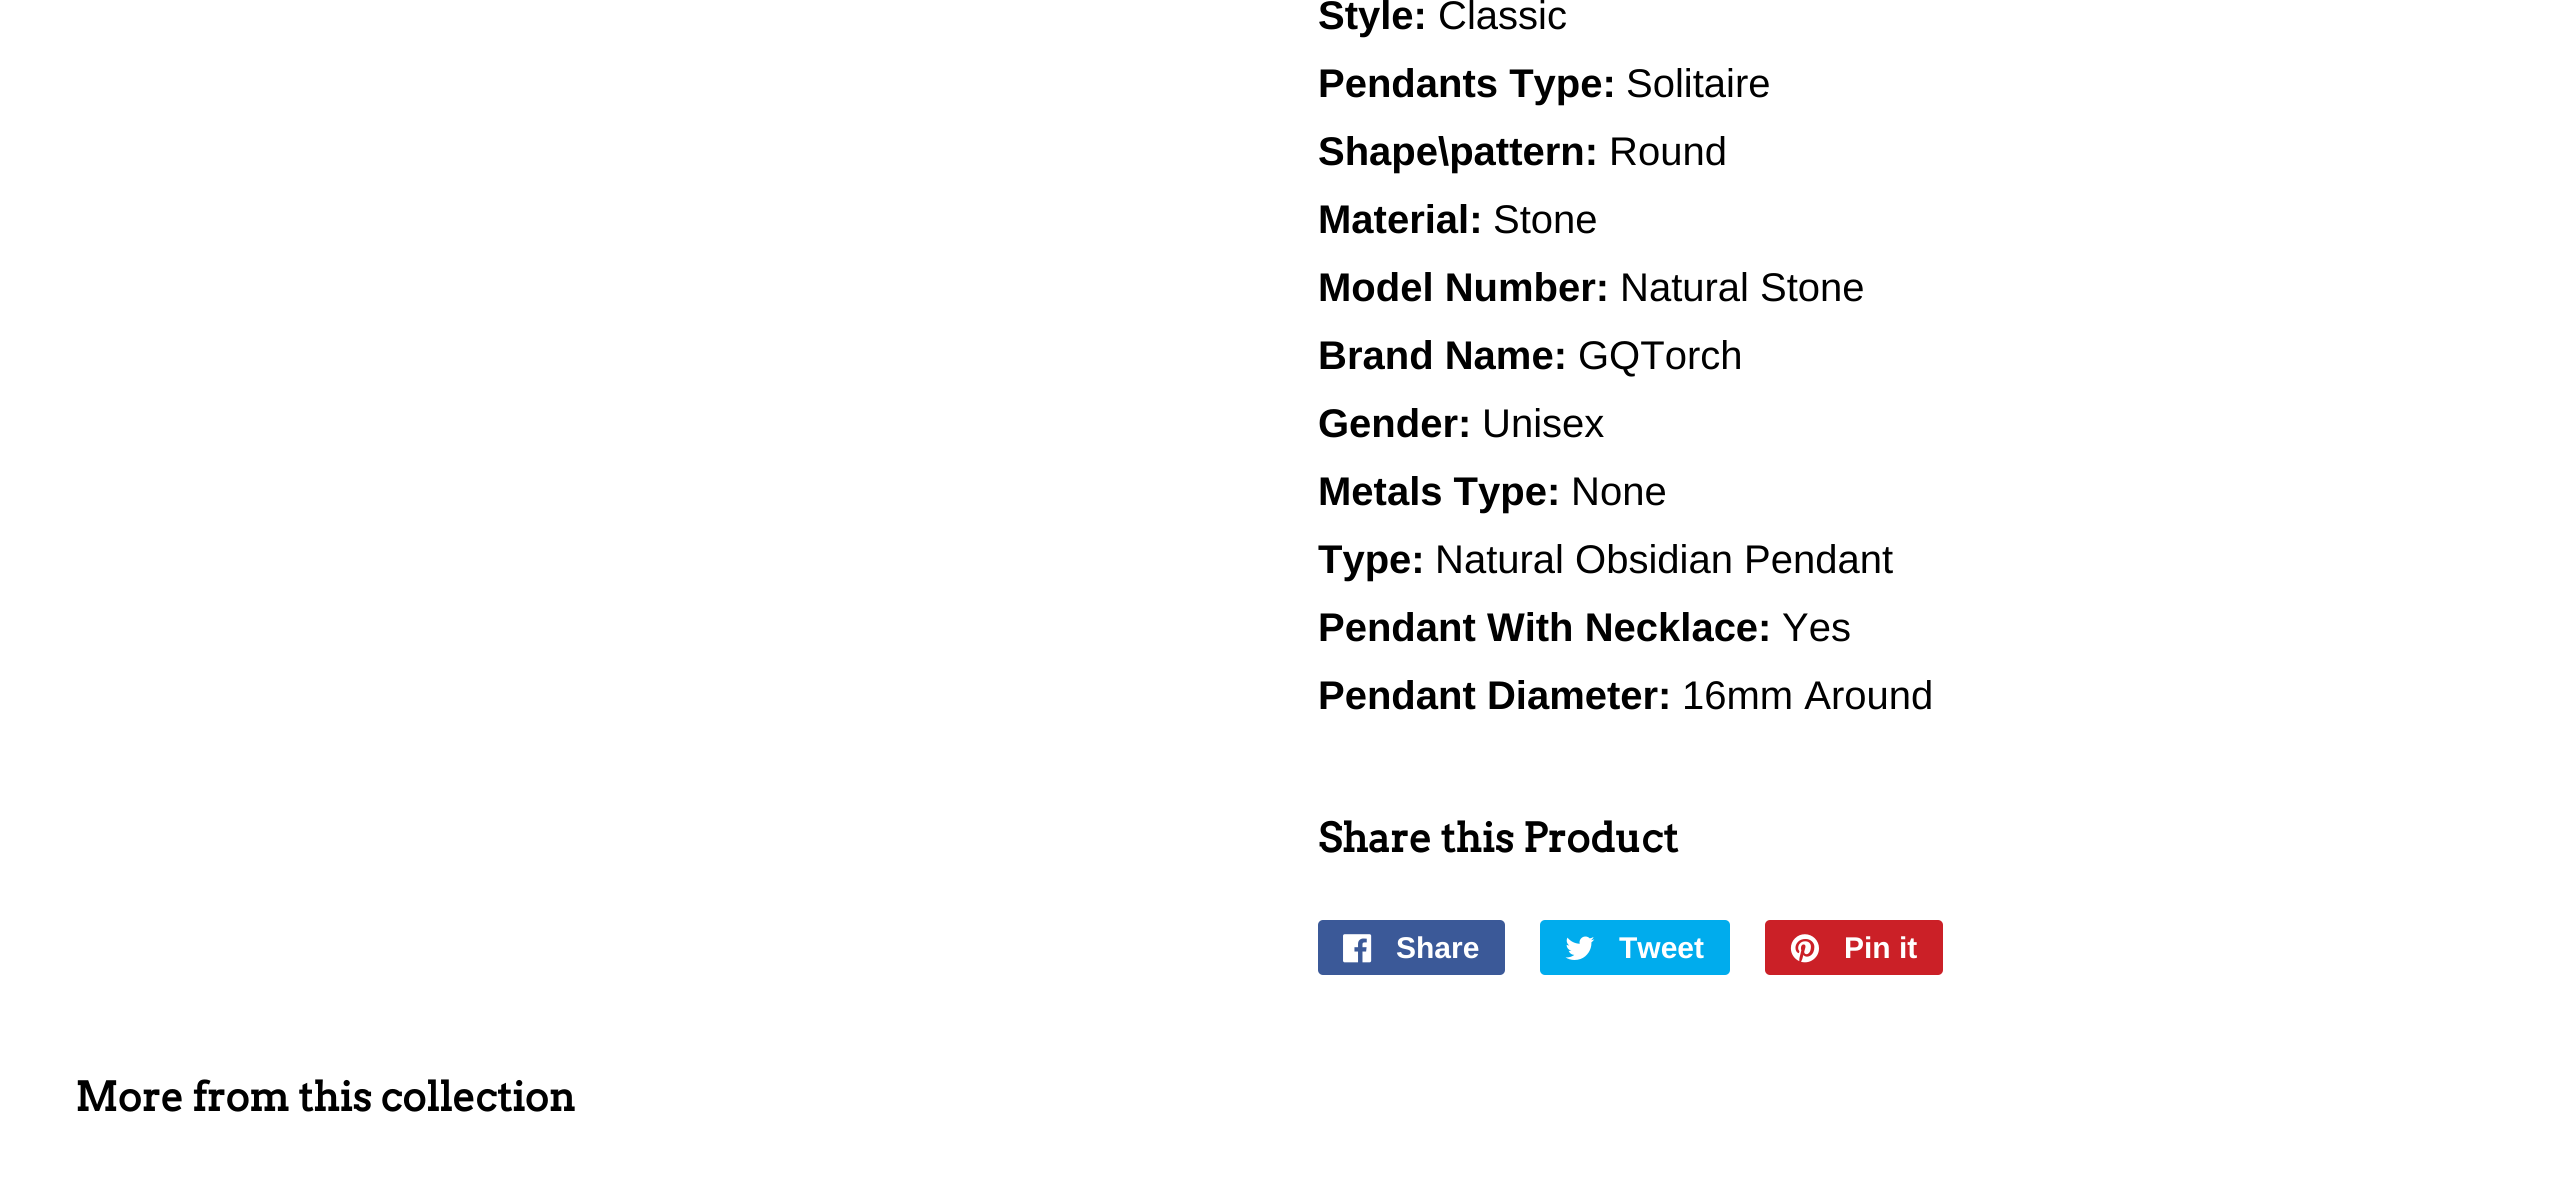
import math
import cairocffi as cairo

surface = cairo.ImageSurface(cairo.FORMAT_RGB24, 2558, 1184)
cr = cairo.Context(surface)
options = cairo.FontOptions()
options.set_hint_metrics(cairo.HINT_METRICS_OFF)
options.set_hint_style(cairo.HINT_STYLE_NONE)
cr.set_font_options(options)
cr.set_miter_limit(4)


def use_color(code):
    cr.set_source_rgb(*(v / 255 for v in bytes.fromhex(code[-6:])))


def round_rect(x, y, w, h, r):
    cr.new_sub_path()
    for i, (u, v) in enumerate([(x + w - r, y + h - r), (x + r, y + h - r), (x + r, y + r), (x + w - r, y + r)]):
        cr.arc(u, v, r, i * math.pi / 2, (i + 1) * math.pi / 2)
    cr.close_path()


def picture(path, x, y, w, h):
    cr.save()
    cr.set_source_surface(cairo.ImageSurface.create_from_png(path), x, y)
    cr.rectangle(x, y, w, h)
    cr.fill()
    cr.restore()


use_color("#ffffff")
cr.paint()
cr.select_font_face("Liberation Sans", cairo.FONT_SLANT_NORMAL, cairo.FONT_WEIGHT_BOLD)
cr.set_font_size(40)
use_color("#000000")
cr.move_to(1318, 29)
cr.show_text("Style:")
cr.select_font_face("Liberation Sans")
cr.move_to(1438, 29)
cr.show_text("Classic")
cr.select_font_face("Liberation Sans", cairo.FONT_SLANT_NORMAL, cairo.FONT_WEIGHT_BOLD)
cr.move_to(1318, 97)
cr.show_text("Pendants Type:")
cr.select_font_face("Liberation Sans")
cr.move_to(1626, 97)
cr.show_text("Solitaire")
cr.select_font_face("Liberation Sans", cairo.FONT_SLANT_NORMAL, cairo.FONT_WEIGHT_BOLD)
cr.move_to(1318, 165)
cr.show_text("Shape\\pattern:")
cr.select_font_face("Liberation Sans")
cr.move_to(1609, 165)
cr.show_text("Round")
cr.select_font_face("Liberation Sans", cairo.FONT_SLANT_NORMAL, cairo.FONT_WEIGHT_BOLD)
cr.move_to(1318, 233)
cr.show_text("Material:")
cr.select_font_face("Liberation Sans")
cr.move_to(1493, 233)
cr.show_text("Stone")
cr.select_font_face("Liberation Sans", cairo.FONT_SLANT_NORMAL, cairo.FONT_WEIGHT_BOLD)
cr.move_to(1318, 301)
cr.show_text("Model Number:")
cr.select_font_face("Liberation Sans")
cr.move_to(1620, 301)
cr.show_text("Natural Stone")
cr.select_font_face("Liberation Sans", cairo.FONT_SLANT_NORMAL, cairo.FONT_WEIGHT_BOLD)
cr.move_to(1318, 369)
cr.show_text("Brand Name:")
cr.select_font_face("Liberation Sans")
cr.move_to(1578, 369)
cr.show_text("GQTorch")
cr.select_font_face("Liberation Sans", cairo.FONT_SLANT_NORMAL, cairo.FONT_WEIGHT_BOLD)
cr.move_to(1318, 437)
cr.show_text("Gender:")
cr.select_font_face("Liberation Sans")
cr.move_to(1482, 437)
cr.show_text("Unisex")
cr.select_font_face("Liberation Sans", cairo.FONT_SLANT_NORMAL, cairo.FONT_WEIGHT_BOLD)
cr.move_to(1318, 505)
cr.show_text("Metals Type:")
cr.select_font_face("Liberation Sans")
cr.move_to(1571, 505)
cr.show_text("None")
cr.select_font_face("Liberation Sans", cairo.FONT_SLANT_NORMAL, cairo.FONT_WEIGHT_BOLD)
cr.move_to(1318, 573)
cr.show_text("Type:")
cr.select_font_face("Liberation Sans")
cr.move_to(1435, 573)
cr.show_text("Natural Obsidian Pendant")
cr.select_font_face("Liberation Sans", cairo.FONT_SLANT_NORMAL, cairo.FONT_WEIGHT_BOLD)
cr.move_to(1318, 641)
cr.show_text("Pendant With Necklace:")
cr.select_font_face("Liberation Sans")
cr.move_to(1782, 641)
cr.show_text("Yes")
cr.select_font_face("Liberation Sans", cairo.FONT_SLANT_NORMAL, cairo.FONT_WEIGHT_BOLD)
cr.move_to(1318, 709)
cr.show_text("Pendant Diameter:")
cr.select_font_face("Liberation Sans")
cr.move_to(1682, 709)
cr.show_text("16mm Around")
cr.select_font_face("Arvo", cairo.FONT_SLANT_NORMAL, cairo.FONT_WEIGHT_BOLD)
cr.move_to(1318, 852)
cr.show_text("Share this Product")
use_color("#3b5998")
round_rect(1318, 920, 187, 55, 5)
cr.fill()
picture("img1.png", 1343, 934, 29, 29)
cr.select_font_face("Liberation Sans", cairo.FONT_SLANT_NORMAL, cairo.FONT_WEIGHT_BOLD)
cr.set_font_size(30)
use_color("#ffffff")
cr.move_to(1396, 958)
cr.show_text("Share")
use_color("#00aced")
round_rect(1540, 920, 190, 55, 5)
cr.fill()
picture("img2.png", 1565, 936, 30, 24)
use_color("#ffffff")
cr.move_to(1619, 958)
cr.show_text("Tweet")
use_color("#cb2027")
round_rect(1765, 920, 178, 55, 5)
cr.fill()
picture("img3.png", 1790, 934, 29, 29)
use_color("#ffffff")
cr.move_to(1844, 958)
cr.show_text("Pin it")
cr.select_font_face("Arvo", cairo.FONT_SLANT_NORMAL, cairo.FONT_WEIGHT_BOLD)
cr.set_font_size(40)
use_color("#000000")
cr.move_to(75, 1111)
cr.show_text("More from this collection")
surface.write_to_png("result.png")
